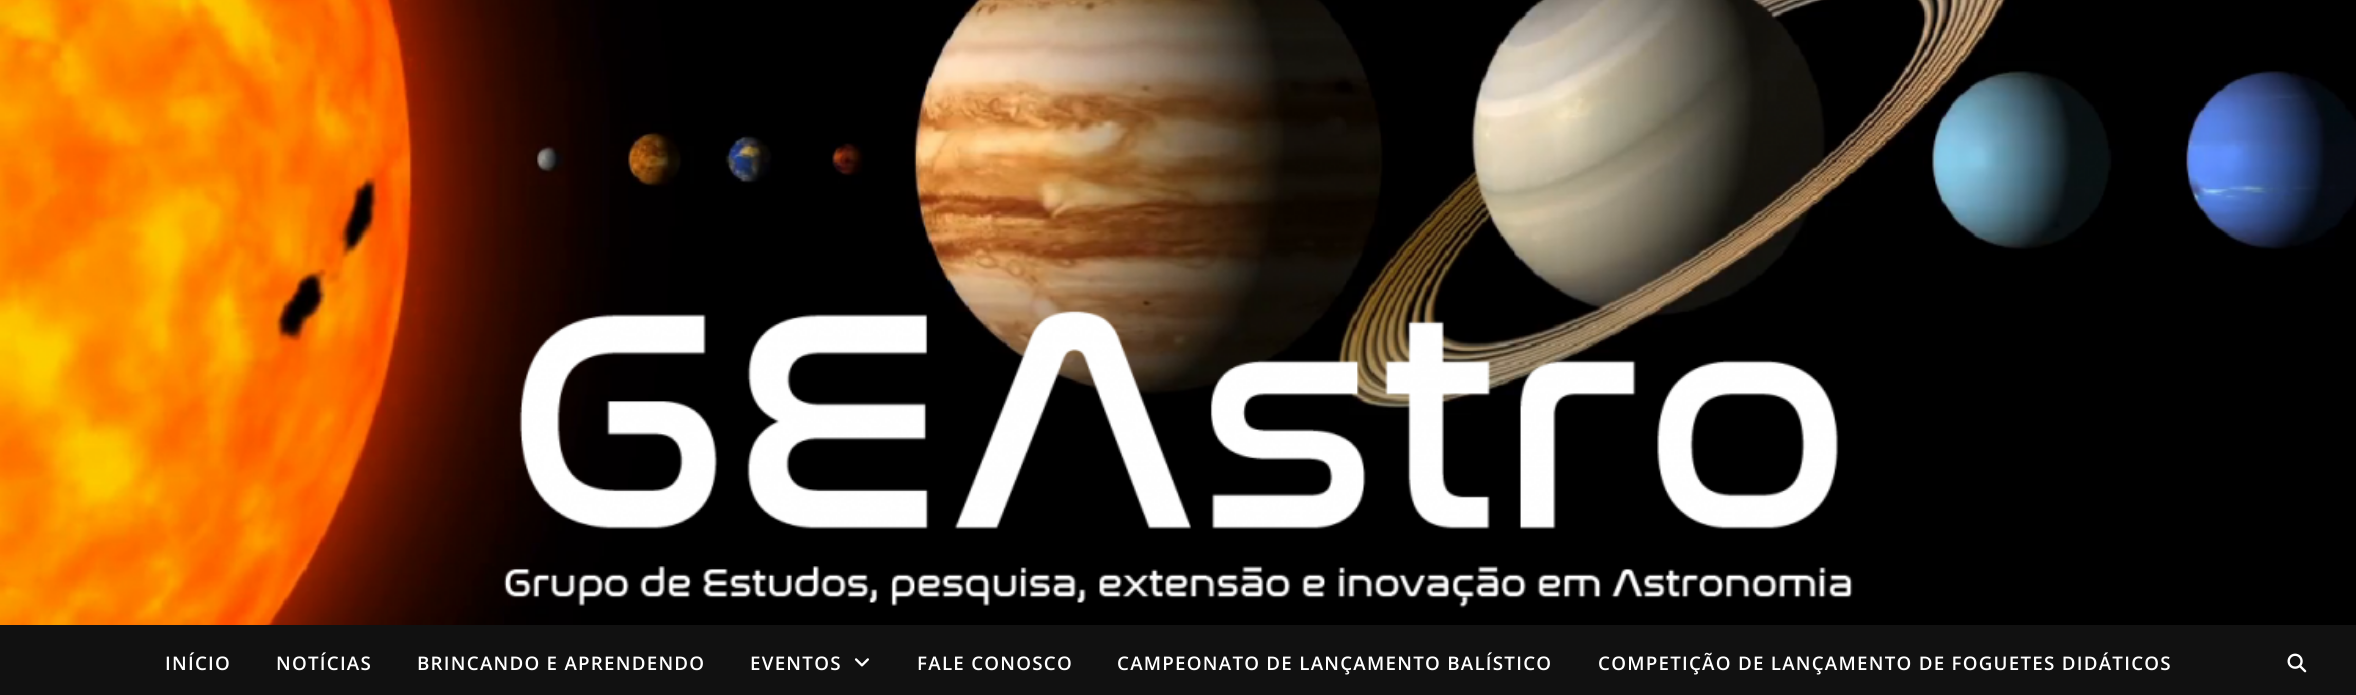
import math
import cairocffi as cairo

surface = cairo.ImageSurface(cairo.FORMAT_RGB24, 2356, 695)
cr = cairo.Context(surface)
options = cairo.FontOptions()
options.set_hint_metrics(cairo.HINT_METRICS_OFF)
options.set_hint_style(cairo.HINT_STYLE_NONE)
cr.set_font_options(options)
cr.set_miter_limit(4)


def use_color(code):
    cr.set_source_rgb(*(v / 255 for v in bytes.fromhex(code[-6:])))


def spaced_text(x, y, s, letter, word):
    cr.move_to(x, y)
    for ch in s:
        cr.show_text(ch)
        cr.rel_move_to(letter + word * (ch == ' '), 0)


def picture(path, x, y, w, h):
    cr.save()
    cr.set_source_surface(cairo.ImageSurface.create_from_png(path), x, y)
    cr.rectangle(x, y, w, h)
    cr.fill()
    cr.restore()


use_color("#ffffff")
cr.paint()
picture("img1.png", 0, 0, 2356, 625)
use_color("#111111")
cr.rectangle(0, 625, 2356, 70)
cr.fill()
cr.select_font_face("Open Sans SemiBold")
cr.set_font_size(18.75)
use_color("#ffffff")
spaced_text(165, 670, "INÍCIO", 1.25, 0)
spaced_text(276, 670, "NOTÍCIAS", 1.25, 0)
spaced_text(417, 670, "BRINCANDO E APRENDENDO", 1.25, 0)
spaced_text(750, 670, "EVENTOS", 1.25, 0)
picture("img2.png", 854, 658, 15, 9)
spaced_text(917, 670, "FALE CONOSCO", 1.25, 0)
spaced_text(1117, 670, "CAMPEONATO DE LANÇAMENTO BALÍSTICO", 1.25, 0)
spaced_text(1598, 670, "COMPETIÇÃO DE LANÇAMENTO DE FOGUETES DIDÁTICOS", 1.25, 0)
picture("img3.png", 2287, 653, 20, 20)
surface.write_to_png("result.png")
